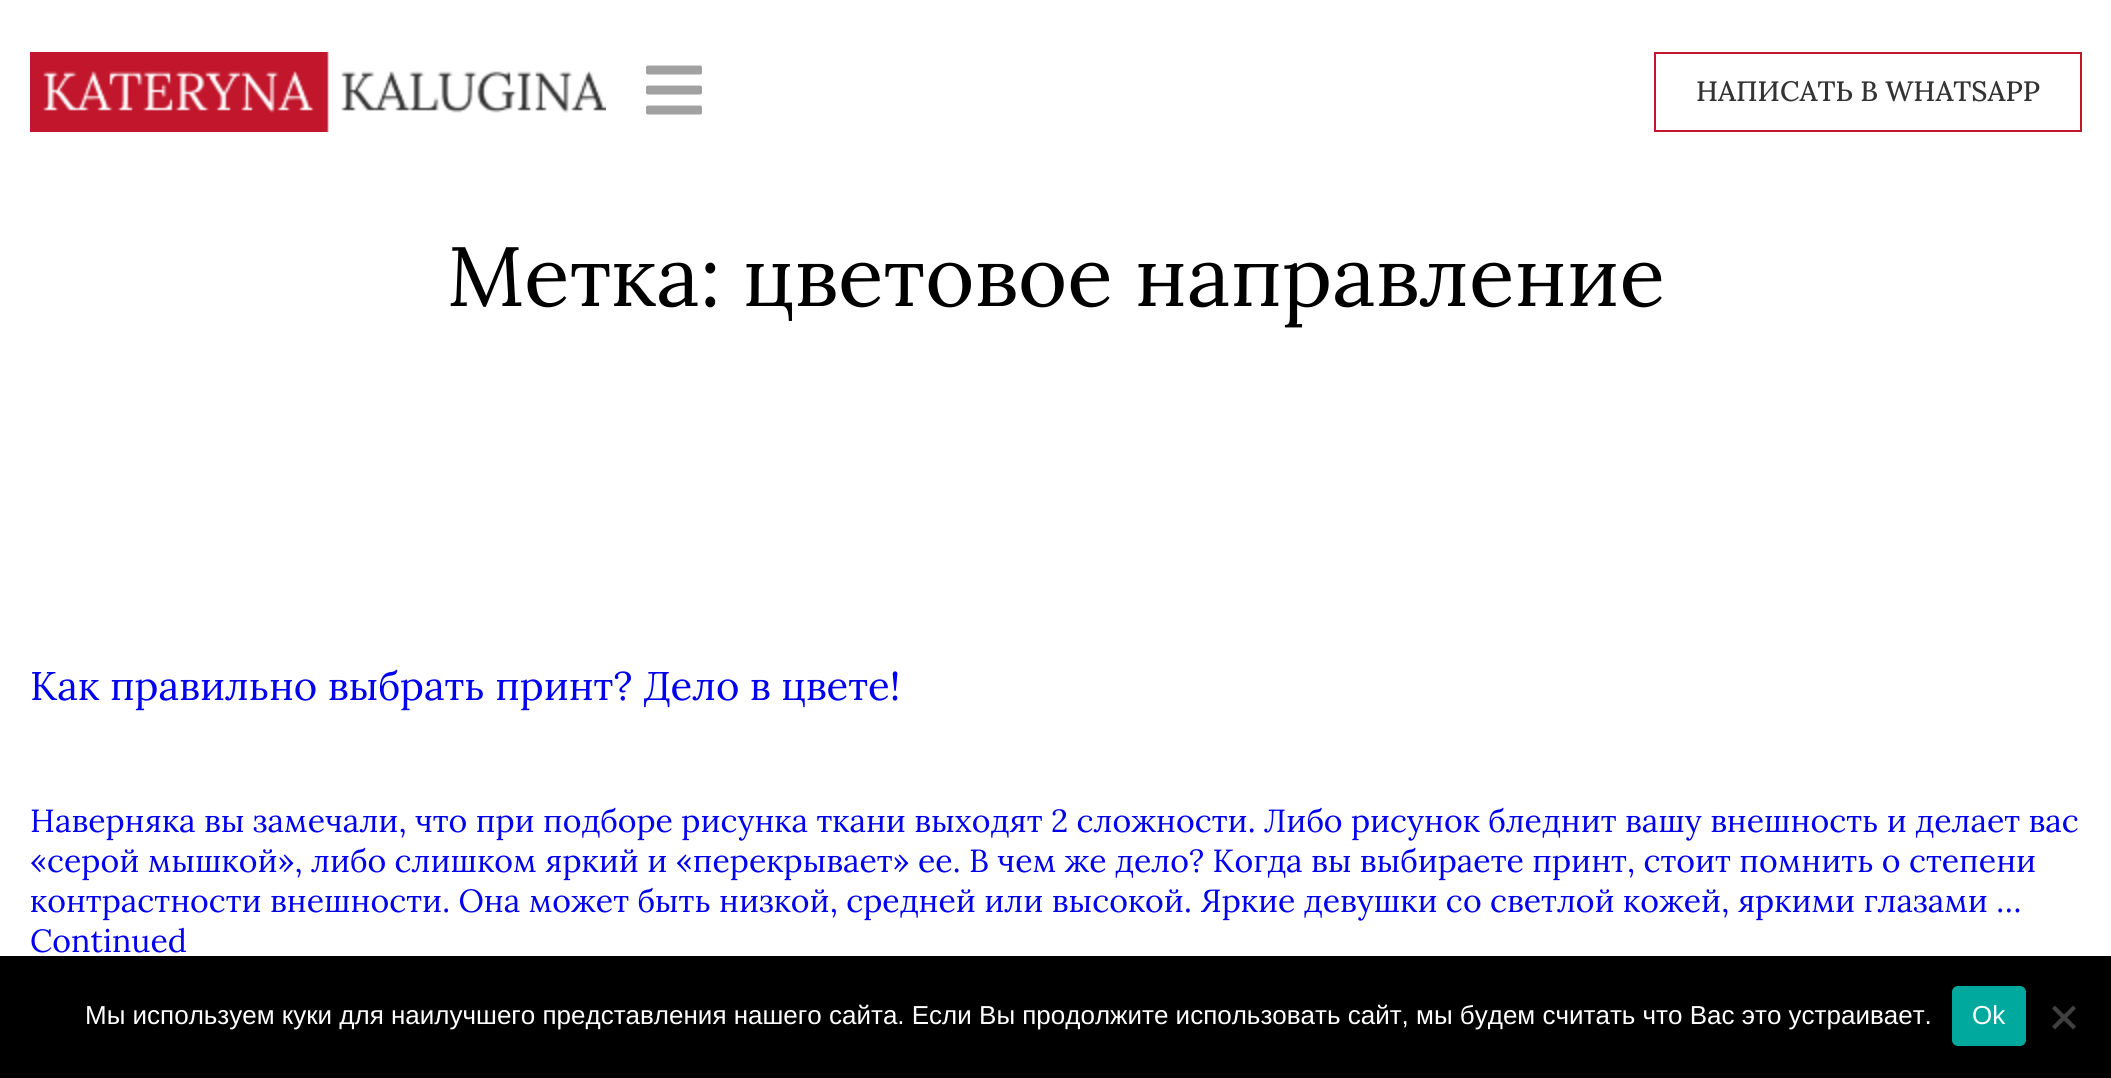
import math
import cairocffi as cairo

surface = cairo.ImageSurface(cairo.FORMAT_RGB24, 2111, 1078)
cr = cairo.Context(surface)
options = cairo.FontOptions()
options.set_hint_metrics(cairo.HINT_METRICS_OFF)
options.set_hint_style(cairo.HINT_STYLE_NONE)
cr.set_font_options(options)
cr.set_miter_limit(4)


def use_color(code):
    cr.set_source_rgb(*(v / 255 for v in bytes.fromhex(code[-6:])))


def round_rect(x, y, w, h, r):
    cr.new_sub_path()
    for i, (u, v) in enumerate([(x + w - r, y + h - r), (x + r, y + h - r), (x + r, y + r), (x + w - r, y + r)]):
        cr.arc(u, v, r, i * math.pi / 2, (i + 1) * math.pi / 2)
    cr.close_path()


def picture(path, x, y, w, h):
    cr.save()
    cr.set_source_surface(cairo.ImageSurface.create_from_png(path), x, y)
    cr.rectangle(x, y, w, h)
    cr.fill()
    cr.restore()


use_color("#ffffff")
cr.paint()
picture("img1.png", 30, 52, 576, 80)
picture("img2.png", 646, 65, 56, 50)
cr.rectangle(1655, 53, 426, 78)
use_color("#c1162c")
cr.stroke()
cr.select_font_face("Lora Medium")
cr.set_font_size(28)
use_color("#333333")
cr.move_to(1696, 101)
cr.show_text("НАПИСАТЬ В WHATSAPP")
cr.select_font_face("Lora")
cr.set_font_size(84)
use_color("#000000")
cr.move_to(447, 306)
cr.show_text("Метка: цветовое направление")
cr.set_font_size(40)
use_color("#0000ee")
cr.move_to(30, 700)
cr.show_text("Как правильно выбрать принт? Дело в цвете!")
cr.set_font_size(32)
cr.move_to(30, 832)
cr.show_text("Наверняка вы замечали, что при подборе рисунка ткани выходят 2 сложности. Либо рисунок бледнит вашу внешность и делает вас")
cr.move_to(30, 872)
cr.show_text("«серой мышкой», либо слишком яркий и «перекрывает» ее. В чем же дело? Когда вы выбираете принт, стоит помнить о степени")
cr.move_to(30, 912)
cr.show_text("контрастности внешности. Она может быть низкой, средней или высокой. Яркие девушки со светлой кожей, яркими глазами …")
cr.move_to(30, 952)
cr.show_text("Continued")
use_color("#000000")
cr.rectangle(0, 956, 2111, 122)
cr.fill()
cr.select_font_face("Liberation Sans")
cr.set_font_size(26)
use_color("#ffffff")
cr.move_to(85, 1024)
cr.show_text("Мы используем куки для наилучшего представления нашего сайта. Если Вы продолжите использовать сайт, мы будем считать что Вас это устраивает.")
use_color("#00a99d")
round_rect(1952, 986, 74, 60, 6)
cr.fill()
use_color("#ffffff")
cr.move_to(1972, 1024)
cr.show_text("Ok")
use_color("#404040")
cr.new_path()
cr.move_to(2073, 1005.5)
cr.line_to(2076, 1008.5)
cr.line_to(2055, 1029.5)
cr.line_to(2052, 1026.5)
cr.close_path()
cr.fill()
cr.new_path()
cr.move_to(2052, 1008.5)
cr.line_to(2055, 1005.5)
cr.line_to(2076, 1026.5)
cr.line_to(2073, 1029.5)
cr.close_path()
cr.fill()
surface.write_to_png("result.png")
